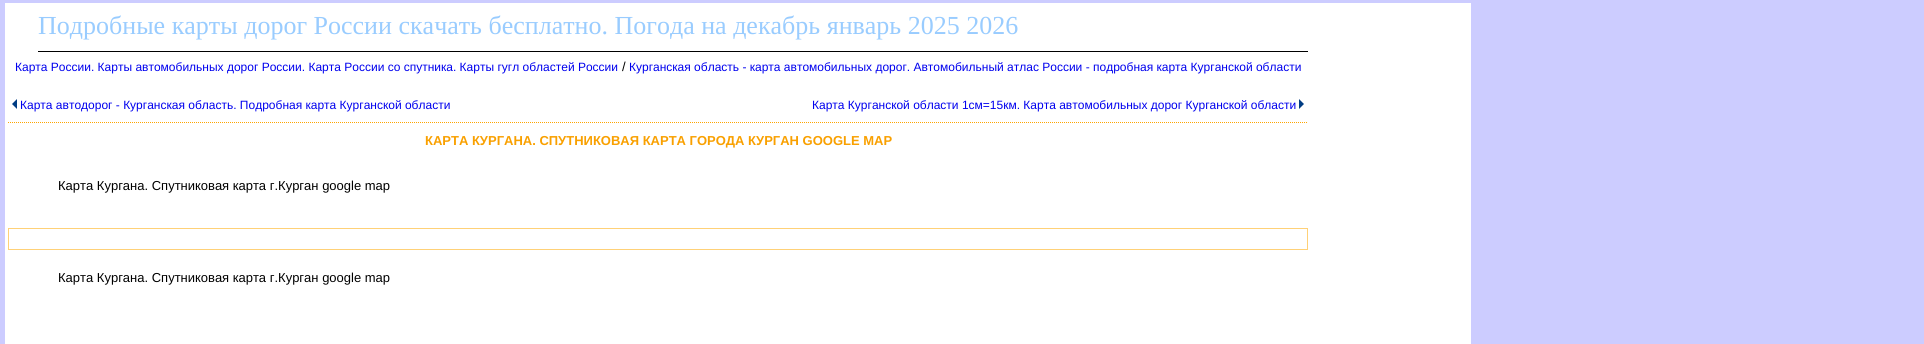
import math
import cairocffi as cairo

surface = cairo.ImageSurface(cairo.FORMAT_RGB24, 1924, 344)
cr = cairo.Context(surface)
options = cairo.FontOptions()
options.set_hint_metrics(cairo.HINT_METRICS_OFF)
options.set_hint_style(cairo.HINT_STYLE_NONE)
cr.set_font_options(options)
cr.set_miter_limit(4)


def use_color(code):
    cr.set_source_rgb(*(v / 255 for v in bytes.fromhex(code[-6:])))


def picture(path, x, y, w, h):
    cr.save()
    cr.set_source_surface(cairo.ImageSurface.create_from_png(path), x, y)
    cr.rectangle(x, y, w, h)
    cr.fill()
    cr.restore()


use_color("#ccccff")
cr.paint()
use_color("#ffffff")
cr.rectangle(5, 3, 1466, 341)
cr.fill()
use_color("#000000")
cr.rectangle(38, 51, 1270, 1)
cr.fill()
cr.select_font_face("Liberation Serif")
cr.set_font_size(26)
use_color("#99ccff")
cr.move_to(38, 34)
cr.show_text("Подробные карты дорог России скачать бесплатно. Погода на декабрь январь 2025 2026")
cr.select_font_face("Liberation Sans")
cr.set_font_size(12)
use_color("#0000ee")
cr.move_to(15, 71)
cr.show_text("Карта России. Карты автомобильных дорог России. Карта России со спутника. Карты гугл областей России")
cr.set_font_size(13)
use_color("#000000")
cr.move_to(622, 71)
cr.show_text("/")
cr.set_font_size(12)
use_color("#0000ee")
cr.move_to(629, 71)
cr.show_text("Курганская область - карта автомобильных дорог. Автомобильный атлас России - подробная карта Курганской области")
picture("img1.png", 12, 99, 5, 10)
cr.move_to(20, 109)
cr.show_text("Карта автодорог - Курганская область. Подробная карта Курганской области")
cr.move_to(812, 109)
cr.show_text("Карта Курганской области 1см=15км. Карта автомобильных дорог Курганской области")
picture("img2.png", 1299, 99, 5, 10)
cr.new_path()
cr.move_to(8, 122.5)
cr.line_to(1308, 122.5)
use_color("#ffa500")
cr.set_line_width(1)
cr.set_dash([1, 1])
cr.stroke()
cr.select_font_face("Liberation Sans", cairo.FONT_SLANT_NORMAL, cairo.FONT_WEIGHT_BOLD)
cr.set_font_size(13)
use_color("#f9a000")
cr.move_to(425, 145)
cr.show_text("КАРТА КУРГАНА. СПУТНИКОВАЯ КАРТА ГОРОДА КУРГАН GOOGLE MAP")
cr.select_font_face("Liberation Sans")
use_color("#000000")
cr.move_to(58, 190)
cr.show_text("Карта Кургана. Спутниковая карта г.Курган google map")
cr.rectangle(8.5, 228.5, 1299, 21)
use_color("#ffd177")
cr.set_dash([])
cr.stroke()
use_color("#000000")
cr.move_to(58, 282)
cr.show_text("Карта Кургана. Спутниковая карта г.Курган google map")
surface.write_to_png("result.png")
